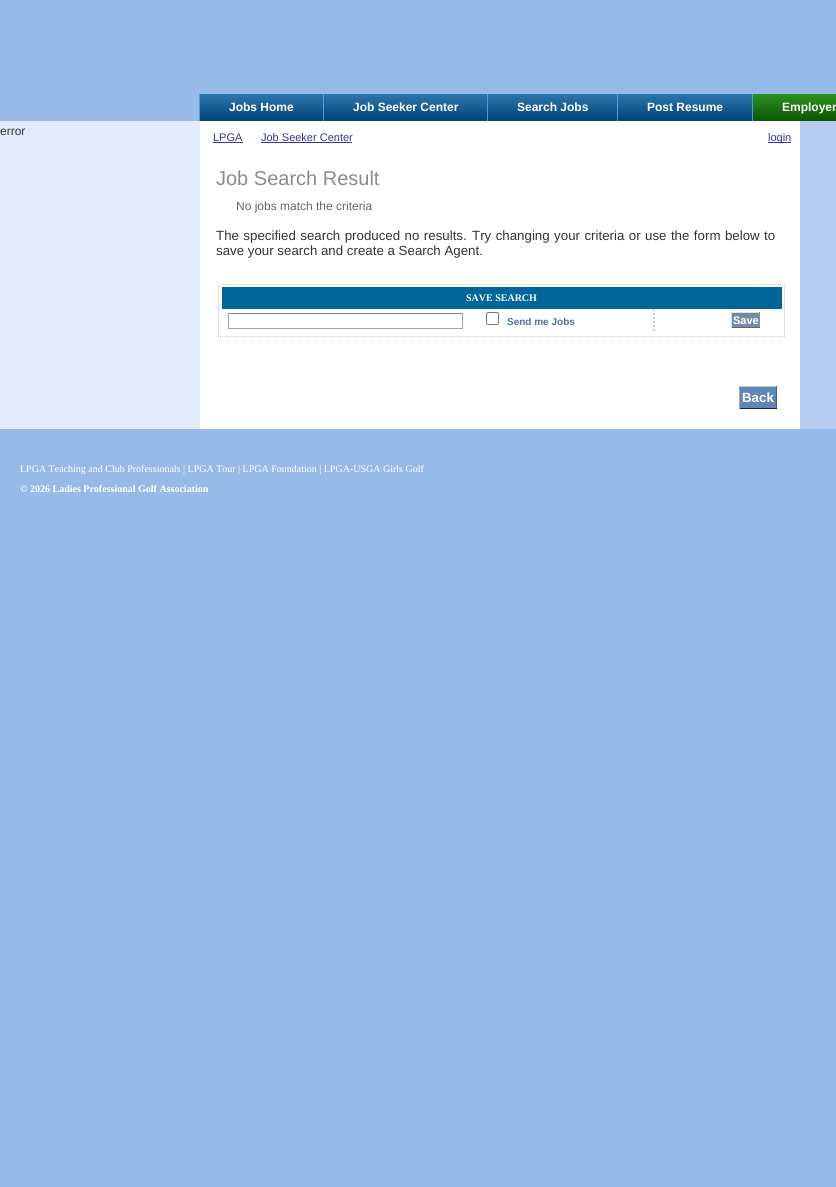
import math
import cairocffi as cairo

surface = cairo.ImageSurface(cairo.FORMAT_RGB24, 836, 1187)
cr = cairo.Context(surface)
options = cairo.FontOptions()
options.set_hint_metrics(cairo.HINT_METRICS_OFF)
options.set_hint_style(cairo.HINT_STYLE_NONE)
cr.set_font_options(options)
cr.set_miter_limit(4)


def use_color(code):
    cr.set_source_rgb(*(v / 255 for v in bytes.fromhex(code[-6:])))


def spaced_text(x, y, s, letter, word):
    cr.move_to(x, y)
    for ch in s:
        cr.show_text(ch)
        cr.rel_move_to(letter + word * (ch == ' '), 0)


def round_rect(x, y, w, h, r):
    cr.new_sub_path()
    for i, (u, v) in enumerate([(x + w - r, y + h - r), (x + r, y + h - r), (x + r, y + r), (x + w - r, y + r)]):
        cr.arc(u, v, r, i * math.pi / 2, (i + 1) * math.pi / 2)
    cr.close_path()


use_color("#98bae8")
cr.paint()
gradient = cairo.LinearGradient(599, 94, 599, 121)
gradient.add_color_stop_rgba(0, 0.173, 0.467, 0.682, 1)
gradient.add_color_stop_rgba(1, 0.004, 0.263, 0.467, 1)
cr.set_source(gradient)
cr.rectangle(200, 94, 552, 27)
cr.fill()
use_color("#489fe1")
cr.rectangle(199, 94, 1, 27)
cr.fill()
cr.rectangle(323, 94, 1, 27)
cr.fill()
cr.select_font_face("Liberation Sans", cairo.FONT_SLANT_NORMAL, cairo.FONT_WEIGHT_BOLD)
cr.set_font_size(12)
use_color("#ffffff")
cr.move_to(229, 111)
cr.show_text("Jobs Home")
use_color("#489fe1")
cr.rectangle(487, 94, 1, 27)
cr.fill()
use_color("#ffffff")
cr.move_to(353, 111)
cr.show_text("Job Seeker Center")
use_color("#489fe1")
cr.rectangle(617, 94, 1, 27)
cr.fill()
use_color("#ffffff")
cr.move_to(517, 111)
cr.show_text("Search Jobs")
use_color("#489fe1")
cr.rectangle(752, 94, 1, 27)
cr.fill()
use_color("#ffffff")
cr.move_to(647, 111)
cr.show_text("Post Resume")
gradient = cairo.LinearGradient(813, 94, 813, 121)
gradient.add_color_stop_rgba(0, 0.18, 0.573, 0.125, 1)
gradient.add_color_stop_rgba(1, 0.043, 0.333, 0.004, 1)
cr.set_source(gradient)
cr.rectangle(753, 94, 83, 27)
cr.fill()
use_color("#ffffff")
cr.move_to(782, 111)
cr.show_text("Employer")
cr.rectangle(200, 121, 600, 308)
cr.fill()
use_color("#e2ebfb")
cr.rectangle(0, 121, 200, 308)
cr.fill()
cr.select_font_face("Liberation Sans")
use_color("#333333")
cr.move_to(0, 135)
cr.show_text("error")
use_color("#b7cbf0")
cr.rectangle(800, 121, 36, 308)
cr.fill()
cr.set_font_size(11)
use_color("#343399")
cr.move_to(213, 141)
cr.show_text("LPGA")
cr.rectangle(213, 142, 30, 1)
cr.fill()
cr.move_to(261, 141)
cr.show_text("Job Seeker Center")
cr.rectangle(261, 142, 91, 1)
cr.fill()
cr.rectangle(768, 142, 23, 1)
cr.fill()
cr.move_to(768, 141)
cr.show_text("login")
cr.set_font_size(20)
use_color("#8c8c8c")
cr.move_to(216, 185)
cr.show_text("Job Search Result")
cr.set_font_size(12)
use_color("#646564")
cr.move_to(236, 210)
cr.show_text("No jobs match the criteria")
cr.set_font_size(13.3)
use_color("#333333")
spaced_text(216, 240, "The specified search produced no results.", 0, 0.75)
spaced_text(472, 240, "Try changing your criteria or use the form below to", 0, 0.75)
cr.move_to(216, 255)
cr.show_text("save your search and create a Search Agent.")
cr.new_path()
cr.move_to(218, 284.5)
cr.line_to(785, 284.5)
use_color("#cccccc")
cr.set_line_width(1)
cr.set_dash([1, 1])
cr.stroke()
cr.new_path()
cr.move_to(784.5, 284)
cr.line_to(784.5, 337)
cr.stroke()
cr.new_path()
cr.move_to(218, 336.5)
cr.line_to(785, 336.5)
cr.stroke()
cr.new_path()
cr.move_to(218.5, 284)
cr.line_to(218.5, 337)
cr.stroke()
use_color("#006699")
cr.rectangle(222, 287, 560, 22)
cr.fill()
cr.select_font_face("Liberation Serif", cairo.FONT_SLANT_NORMAL, cairo.FONT_WEIGHT_BOLD)
cr.set_font_size(10)
use_color("#ffffff")
cr.move_to(466, 301)
cr.show_text("SAVE SEARCH")
cr.new_path()
cr.move_to(654, 309)
cr.line_to(654, 333)
use_color("#cccccc")
cr.set_line_width(2)
cr.set_dash([2, 2])
cr.stroke()
use_color("#808080")
cr.rectangle(228, 313, 235, 1)
cr.fill()
use_color("#a2a2a2")
cr.rectangle(462, 313, 1, 16)
cr.fill()
cr.rectangle(228, 328, 235, 1)
cr.fill()
cr.rectangle(228, 313, 1, 16)
cr.fill()
round_rect(486.5, 312.5, 12, 12, 1.5)
use_color("#767676")
cr.set_line_width(1)
cr.set_dash([])
cr.stroke()
cr.select_font_face("Liberation Sans", cairo.FONT_SLANT_NORMAL, cairo.FONT_WEIGHT_BOLD)
use_color("#4d72a0")
cr.move_to(507, 325)
cr.show_text("Send me Jobs")
use_color("#738aa3")
cr.rectangle(732, 313, 27, 14)
cr.fill()
use_color("#d5e1ec")
cr.rectangle(731, 312, 29, 1)
cr.fill()
use_color("#83919d")
cr.rectangle(759, 312, 1, 16)
cr.fill()
use_color("#606973")
cr.rectangle(731, 327, 29, 1)
cr.fill()
use_color("#cbdbe8")
cr.rectangle(731, 312, 1, 16)
cr.fill()
cr.set_font_size(11)
use_color("#ffffff")
cr.move_to(733, 324)
cr.show_text("Save")
use_color("#5f88b7")
cr.rectangle(740, 387, 36, 21)
cr.fill()
use_color("#b5cce7")
cr.rectangle(739, 386, 38, 1)
cr.fill()
use_color("#46607e")
cr.rectangle(776, 386, 1, 23)
cr.fill()
use_color("#17273a")
cr.rectangle(739, 408, 38, 1)
cr.fill()
use_color("#8cadd1")
cr.rectangle(739, 386, 1, 23)
cr.fill()
cr.set_font_size(13.3)
use_color("#ffffff")
cr.move_to(742, 402)
cr.show_text("Back")
cr.select_font_face("Liberation Serif")
cr.set_font_size(10)
cr.move_to(20, 472)
cr.show_text("LPGA Teaching and Club Professionals | LPGA Tour | LPGA Foundation | LPGA-USGA Girls Golf")
cr.select_font_face("Liberation Serif", cairo.FONT_SLANT_NORMAL, cairo.FONT_WEIGHT_BOLD)
cr.move_to(20, 492)
cr.show_text("© 2026 Ladies Professional Golf Association")
surface.write_to_png("result.png")
